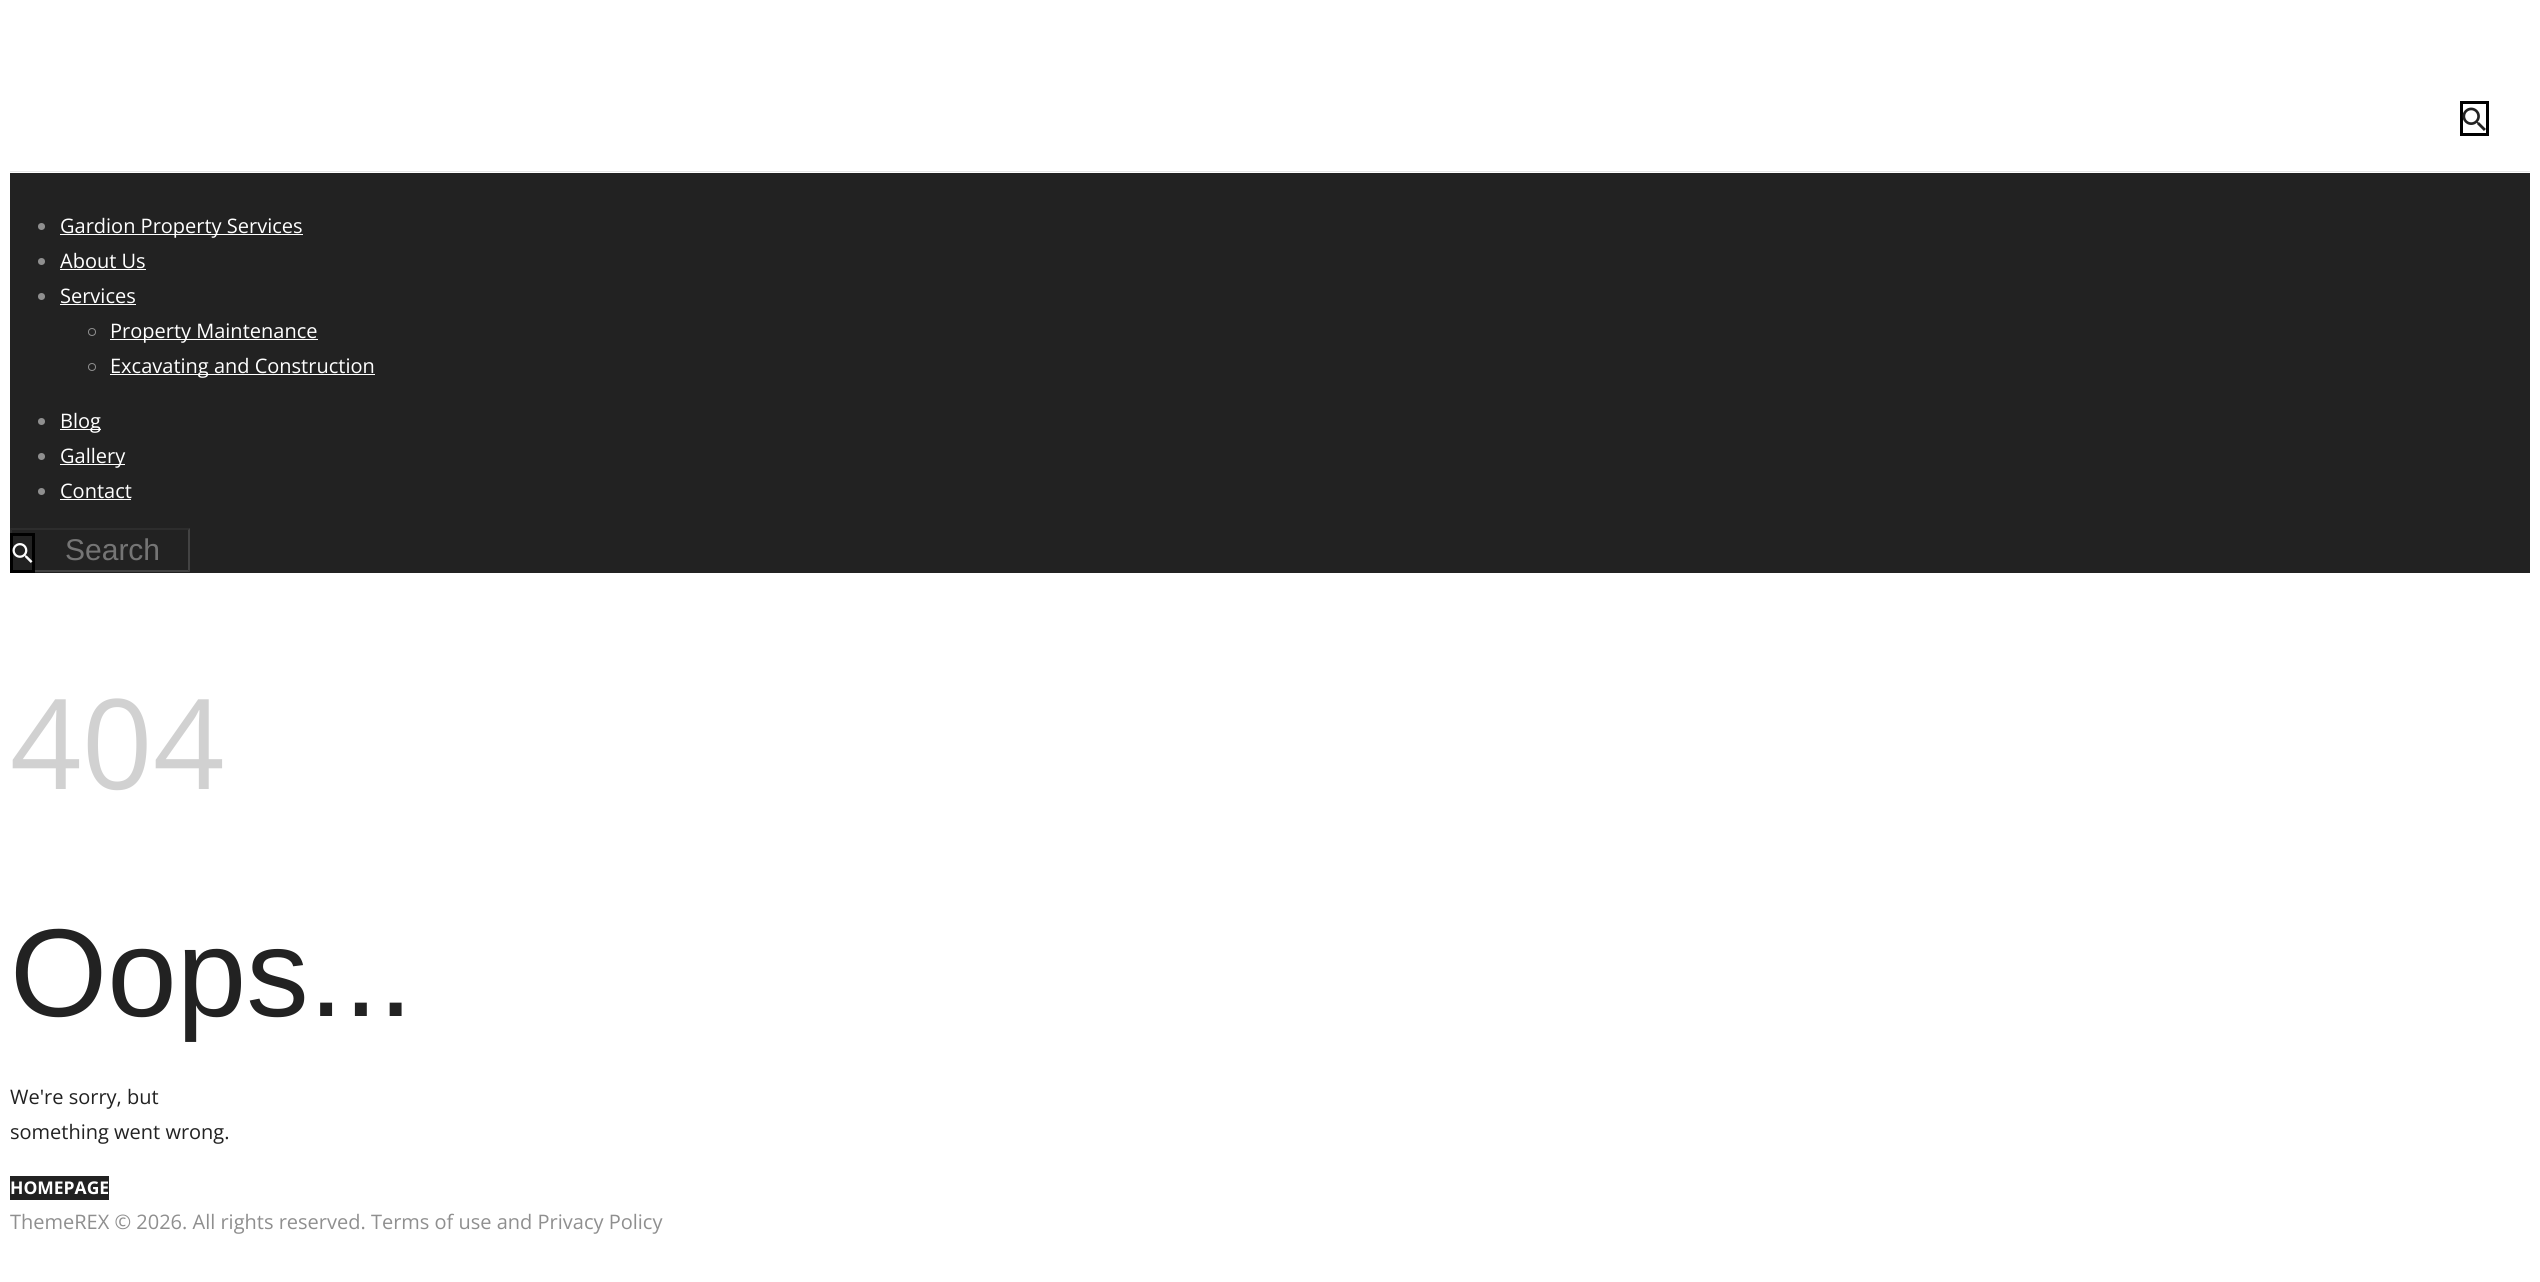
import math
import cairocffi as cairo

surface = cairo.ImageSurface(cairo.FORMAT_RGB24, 2540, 1282)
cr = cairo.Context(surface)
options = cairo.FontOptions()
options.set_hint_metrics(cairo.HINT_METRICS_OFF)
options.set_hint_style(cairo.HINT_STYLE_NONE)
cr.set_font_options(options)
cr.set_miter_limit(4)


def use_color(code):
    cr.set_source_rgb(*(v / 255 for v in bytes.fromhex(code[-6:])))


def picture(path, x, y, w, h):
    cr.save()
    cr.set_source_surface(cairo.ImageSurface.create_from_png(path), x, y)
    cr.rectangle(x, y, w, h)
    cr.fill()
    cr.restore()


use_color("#ffffff")
cr.paint()
use_color("#e5e5e5")
cr.rectangle(10, 171, 2520, 1)
cr.fill()
cr.rectangle(2461.5, 102.5, 26, 32)
use_color("#000000")
cr.set_line_width(3)
cr.stroke()
picture("img1.png", 2462, 107, 24, 24)
use_color("#222222")
cr.rectangle(10, 173, 2520, 400)
cr.fill()
use_color("#8f8f8f")
cr.arc(41.5, 226.5, 3.5, 0, 2 * math.pi)
cr.fill()
use_color("#ffffff")
cr.rectangle(60, 234, 243, 1)
cr.fill()
cr.select_font_face("Open Sans")
cr.set_font_size(20)
cr.move_to(60, 233)
cr.show_text("Gardion Property Services")
use_color("#8f8f8f")
cr.new_path()
cr.arc(41.5, 261.5, 3.5, 0, 2 * math.pi)
cr.fill()
use_color("#ffffff")
cr.move_to(60, 268)
cr.show_text("About Us")
cr.rectangle(60, 269, 86, 1)
cr.fill()
use_color("#8f8f8f")
cr.arc(41.5, 296.5, 3.5, 0, 2 * math.pi)
cr.fill()
use_color("#ffffff")
cr.move_to(60, 303)
cr.show_text("Services")
cr.rectangle(60, 304, 76, 1)
cr.fill()
cr.arc(92, 332, 3.5, 0, 2 * math.pi)
use_color("#8f8f8f")
cr.set_line_width(1)
cr.stroke()
use_color("#ffffff")
cr.rectangle(110, 339, 208, 1)
cr.fill()
cr.move_to(110, 338)
cr.show_text("Property Maintenance")
cr.new_path()
cr.arc(92, 367, 3.5, 0, 2 * math.pi)
use_color("#8f8f8f")
cr.stroke()
use_color("#ffffff")
cr.rectangle(110, 374, 265, 1)
cr.fill()
cr.move_to(110, 373)
cr.show_text("Excavating and Construction")
use_color("#8f8f8f")
cr.new_path()
cr.arc(41.5, 421.5, 3.5, 0, 2 * math.pi)
cr.fill()
use_color("#ffffff")
cr.rectangle(60, 429, 41, 1)
cr.fill()
cr.move_to(60, 428)
cr.show_text("Blog")
use_color("#8f8f8f")
cr.new_path()
cr.arc(41.5, 456.5, 3.5, 0, 2 * math.pi)
cr.fill()
use_color("#ffffff")
cr.rectangle(60, 464, 65, 1)
cr.fill()
cr.move_to(60, 463)
cr.show_text("Gallery")
use_color("#8f8f8f")
cr.new_path()
cr.arc(41.5, 491.5, 3.5, 0, 2 * math.pi)
cr.fill()
use_color("#ffffff")
cr.move_to(60, 498)
cr.show_text("Contact")
cr.rectangle(60, 499, 71, 1)
cr.fill()
use_color("#2d2d2d")
cr.new_path()
cr.move_to(10, 528)
cr.line_to(190, 528)
cr.line_to(188, 530)
cr.line_to(12, 530)
cr.close_path()
cr.fill()
use_color("#434343")
cr.new_path()
cr.move_to(190, 528)
cr.line_to(190, 572)
cr.line_to(188, 570)
cr.line_to(188, 530)
cr.close_path()
cr.fill()
cr.new_path()
cr.move_to(190, 572)
cr.line_to(10, 572)
cr.line_to(12, 570)
cr.line_to(188, 570)
cr.close_path()
cr.fill()
use_color("#2d2d2d")
cr.new_path()
cr.move_to(10, 572)
cr.line_to(10, 528)
cr.line_to(12, 530)
cr.line_to(12, 570)
cr.close_path()
cr.fill()
cr.rectangle(11.5, 534.5, 22, 37)
use_color("#000000")
cr.set_line_width(3)
cr.stroke()
picture("img2.png", 12, 543, 21, 20)
cr.select_font_face("Liberation Sans")
cr.set_font_size(30)
use_color("#757575")
cr.move_to(65, 560)
cr.show_text("Search")
cr.select_font_face("Open Sans")
cr.set_font_size(125)
use_color("#d1d1d1")
cr.move_to(10, 789)
cr.show_text("404")
cr.select_font_face("Liberation Sans")
use_color("#222222")
cr.move_to(10, 1016)
cr.show_text("Oops...")
cr.select_font_face("Open Sans")
cr.set_font_size(20)
cr.move_to(10, 1104)
cr.show_text("We're sorry, but")
cr.move_to(10, 1139)
cr.show_text("something went wrong.")
cr.rectangle(10, 1176, 99, 24)
cr.fill()
cr.select_font_face("Open Sans", cairo.FONT_SLANT_NORMAL, cairo.FONT_WEIGHT_BOLD)
cr.set_font_size(17.5)
use_color("#ffffff")
cr.move_to(10, 1194)
cr.show_text("HOMEPAGE")
cr.select_font_face("Open Sans")
cr.set_font_size(20)
use_color("#8f8f8f")
cr.move_to(10, 1229)
cr.show_text("ThemeREX © 2026. All rights reserved. Terms of use and Privacy Policy")
surface.write_to_png("result.png")
